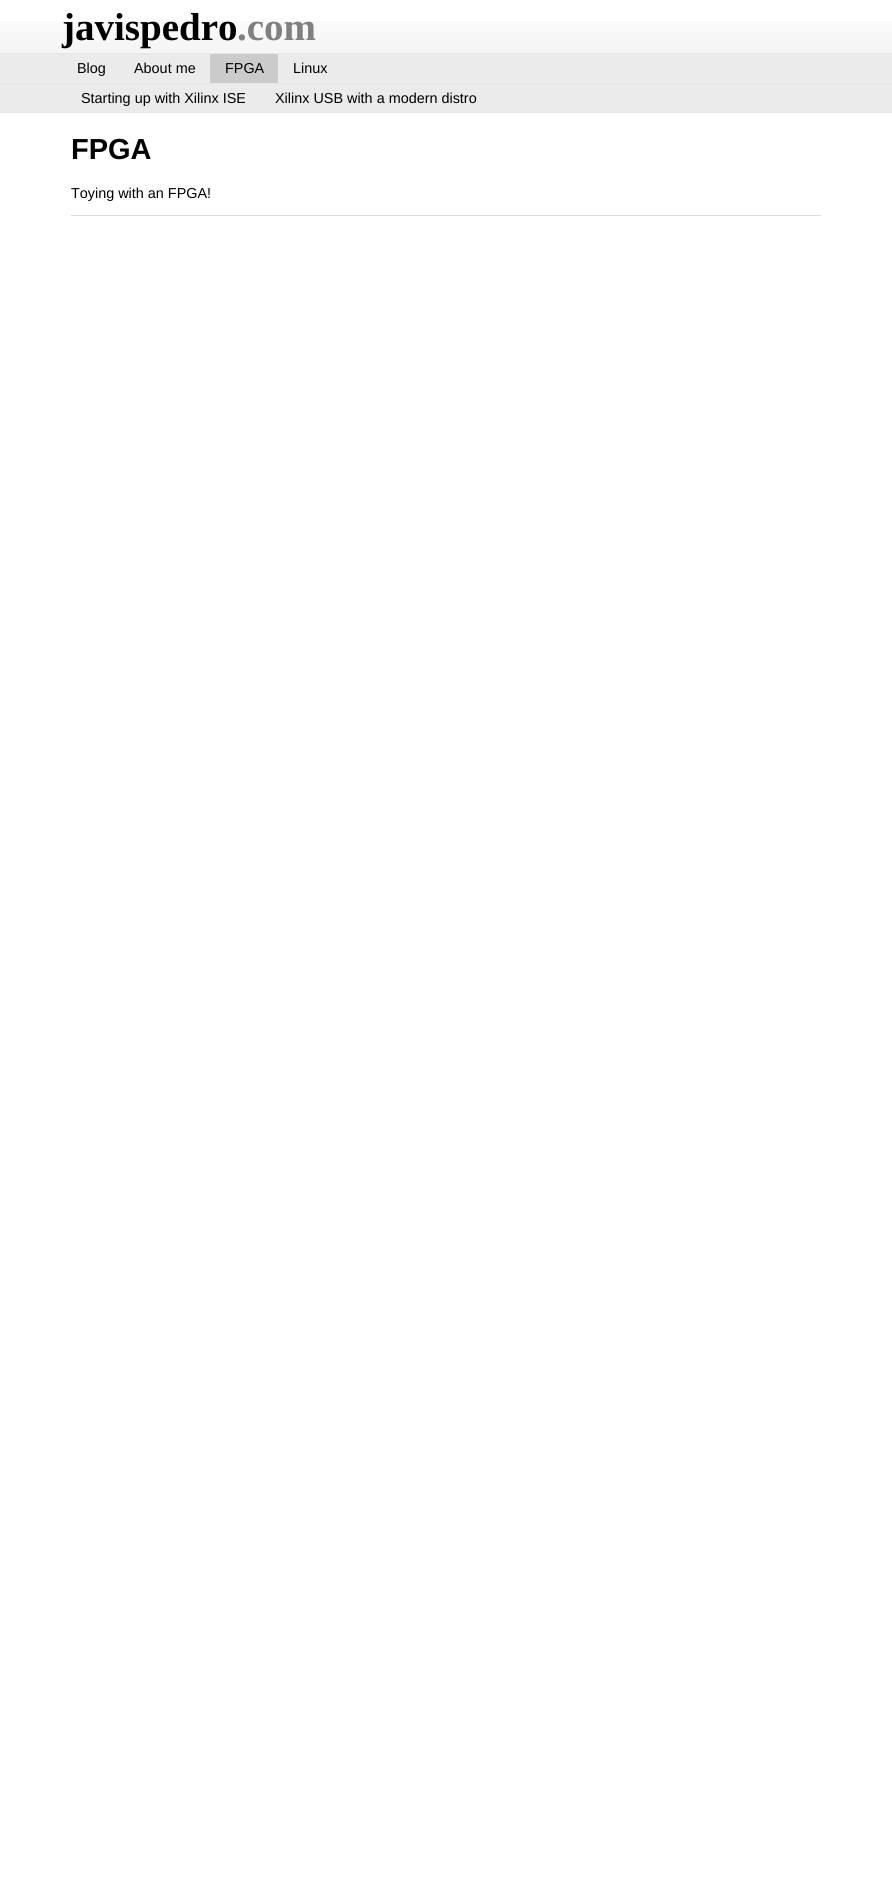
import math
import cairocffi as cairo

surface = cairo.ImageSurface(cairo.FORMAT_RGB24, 892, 1894)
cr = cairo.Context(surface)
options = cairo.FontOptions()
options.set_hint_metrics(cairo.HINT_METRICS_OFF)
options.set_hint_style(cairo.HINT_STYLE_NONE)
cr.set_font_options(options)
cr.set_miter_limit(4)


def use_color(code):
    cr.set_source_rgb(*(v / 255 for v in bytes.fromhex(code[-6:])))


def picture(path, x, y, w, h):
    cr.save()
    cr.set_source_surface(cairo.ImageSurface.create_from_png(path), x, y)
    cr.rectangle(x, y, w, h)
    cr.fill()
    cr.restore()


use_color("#ffffff")
cr.paint()
picture("img1.png", 0, 21, 892, 32)
use_color("#e6e6e6")
cr.rectangle(0, 53, 892, 1)
cr.fill()
cr.select_font_face("Liberation Serif", cairo.FONT_SLANT_NORMAL, cairo.FONT_WEIGHT_BOLD)
cr.set_font_size(39)
use_color("#000000")
cr.move_to(62, 40)
cr.show_text("javispedro")
use_color("#808080")
cr.move_to(237, 40)
cr.show_text(".com")
use_color("#ebebeb")
cr.rectangle(0, 54, 892, 29)
cr.fill()
use_color("#e6e6e6")
cr.rectangle(0, 83, 892, 1)
cr.fill()
cr.select_font_face("Liberation Sans")
cr.set_font_size(14.4)
use_color("#000000")
cr.move_to(77, 73)
cr.show_text("Blog")
cr.move_to(134, 73)
cr.show_text("About me")
use_color("#cbcbcb")
cr.rectangle(210, 54, 68, 29)
cr.fill()
use_color("#000000")
cr.move_to(225, 73)
cr.show_text("FPGA")
cr.move_to(293, 73)
cr.show_text("Linux")
use_color("#ebebeb")
cr.rectangle(0, 84, 892, 28)
cr.fill()
use_color("#e6e6e6")
cr.rectangle(0, 112, 892, 1)
cr.fill()
use_color("#000000")
cr.move_to(81, 103)
cr.show_text("Starting up with Xilinx ISE")
cr.move_to(275, 103)
cr.show_text("Xilinx USB with a modern distro")
cr.select_font_face("Liberation Sans", cairo.FONT_SLANT_NORMAL, cairo.FONT_WEIGHT_BOLD)
cr.set_font_size(29)
cr.move_to(71, 159)
cr.show_text("FPGA")
use_color("#dddddd")
cr.rectangle(71, 215, 750, 1)
cr.fill()
cr.select_font_face("Liberation Sans")
cr.set_font_size(14.4)
use_color("#000000")
cr.move_to(71, 198)
cr.show_text("Toying with an FPGA!")
surface.write_to_png("result.png")
